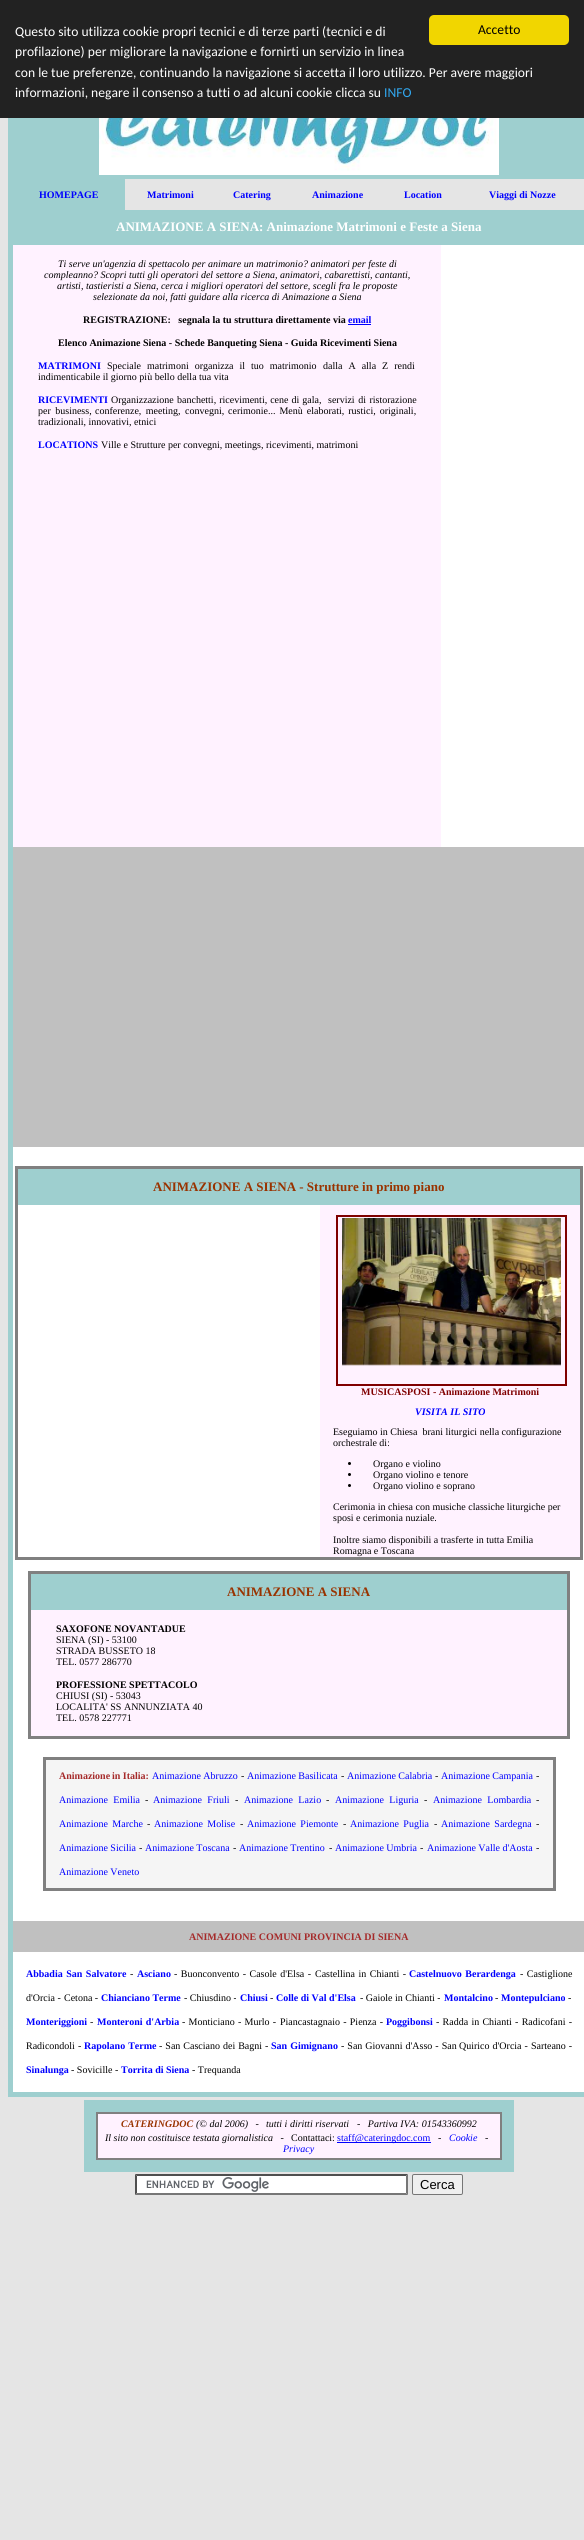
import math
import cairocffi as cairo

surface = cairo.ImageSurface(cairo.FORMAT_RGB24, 584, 2540)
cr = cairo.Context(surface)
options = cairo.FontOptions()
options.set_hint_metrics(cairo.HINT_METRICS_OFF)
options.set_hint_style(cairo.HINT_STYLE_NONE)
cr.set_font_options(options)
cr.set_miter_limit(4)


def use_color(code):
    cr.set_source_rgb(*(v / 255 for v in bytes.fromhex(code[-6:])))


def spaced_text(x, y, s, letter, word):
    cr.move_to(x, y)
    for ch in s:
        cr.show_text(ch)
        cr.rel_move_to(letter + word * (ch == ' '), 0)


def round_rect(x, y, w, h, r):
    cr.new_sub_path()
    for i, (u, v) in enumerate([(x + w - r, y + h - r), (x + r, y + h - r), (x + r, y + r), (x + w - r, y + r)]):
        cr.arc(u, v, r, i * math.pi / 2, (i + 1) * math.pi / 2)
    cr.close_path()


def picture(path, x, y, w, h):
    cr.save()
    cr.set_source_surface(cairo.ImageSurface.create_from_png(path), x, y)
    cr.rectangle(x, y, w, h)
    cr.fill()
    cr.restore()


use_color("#e5e5e5")
cr.paint()
use_color("#222222")
cr.rectangle(0, 0, 584, 118)
cr.fill()
use_color("#f1d600")
round_rect(429, 15, 140, 30, 5)
cr.fill()
cr.select_font_face("Carlito")
cr.set_font_size(13.6)
use_color("#000000")
cr.move_to(478, 34)
cr.show_text("Accetto")
use_color("#ffffff")
cr.move_to(15, 36)
cr.show_text("Questo sito utilizza cookie propri tecnici e di terze parti (tecnici e di")
cr.move_to(15, 56)
cr.show_text("profilazione) per migliorare la navigazione e fornirti un servizio in linea")
cr.move_to(15, 77)
cr.show_text("con le tue preferenze, continuando la navigazione si accetta il loro utilizzo. Per avere maggiori")
cr.move_to(15, 97)
cr.show_text("informazioni, negare il consenso a tutti o ad alcuni cookie clicca su")
use_color("#31a8f0")
cr.move_to(384, 97)
cr.show_text("INFO")
use_color("#9ecfcf")
cr.rectangle(8, 118, 576, 1979)
cr.fill()
picture("img1.png", 99, 118, 400, 57)
cr.select_font_face("Liberation Serif", cairo.FONT_SLANT_NORMAL, cairo.FONT_WEIGHT_BOLD)
cr.set_font_size(10)
use_color("#0000ff")
cr.move_to(39, 198)
cr.show_text("HOMEPAGE")
use_color("#e5e5e5")
cr.rectangle(125, 179, 459, 31)
cr.fill()
use_color("#0000ff")
cr.move_to(147, 198)
cr.show_text("Matrimoni")
cr.move_to(233, 198)
cr.show_text("Catering")
cr.move_to(312, 198)
cr.show_text("Animazione")
cr.move_to(404, 198)
cr.show_text("Location")
cr.move_to(489, 198)
cr.show_text("Viaggi di Nozze")
cr.set_font_size(13)
use_color("#ffffff")
cr.move_to(116, 231)
cr.show_text("ANIMAZIONE A SIENA: Animazione Matrimoni e Feste a Siena")
use_color("#fff2ff")
cr.rectangle(13, 245, 428, 602)
cr.fill()
cr.select_font_face("Liberation Serif", cairo.FONT_SLANT_ITALIC)
cr.set_font_size(10)
use_color("#000000")
cr.move_to(58, 267)
cr.show_text("Ti serve un'agenzia di spettacolo per animare un matrimonio? animatori per feste di")
cr.move_to(44, 278)
cr.show_text("compleanno? Scopri tutti gli operatori del settore a Siena, animatori, cabarettisti, cantanti,")
cr.move_to(57, 289)
cr.show_text("artisti, tastieristi a Siena, cerca i migliori operatori del settore, scegli fra le proposte")
cr.move_to(93, 300)
cr.show_text("selezionate da noi, fatti guidare alla ricerca di Animazione a Siena")
cr.select_font_face("Liberation Serif", cairo.FONT_SLANT_NORMAL, cairo.FONT_WEIGHT_BOLD)
cr.move_to(83, 323)
cr.show_text("REGISTRAZIONE:   segnala la tu struttura direttamente via")
use_color("#0000ff")
cr.rectangle(348, 324, 23, 1)
cr.fill()
cr.move_to(348, 323)
cr.show_text("email")
use_color("#000000")
cr.move_to(58, 346)
cr.show_text("Elenco Animazione Siena - Schede Banqueting Siena - Guida Ricevimenti Siena")
use_color("#0000ff")
cr.move_to(38, 369)
cr.show_text("MATRIMONI")
cr.select_font_face("Liberation Serif")
use_color("#000000")
cr.move_to(107, 369)
cr.show_text("Speciale")
spaced_text(147, 369, "matrimoni organizza il tuo matrimonio", 0, 3.5)
spaced_text(323, 369, "dalla A alla Z rendi", 0, 3.5)
cr.move_to(38, 380)
cr.show_text("indimenticabile il giorno più bello della tua vita")
cr.select_font_face("Liberation Serif", cairo.FONT_SLANT_NORMAL, cairo.FONT_WEIGHT_BOLD)
use_color("#0000ff")
cr.move_to(38, 403)
cr.show_text("RICEVIMENTI")
cr.select_font_face("Liberation Serif")
use_color("#000000")
cr.move_to(111, 403)
cr.show_text("Organizzazione")
spaced_text(177, 403, "banchetti, ricevimenti, cene di gala,", 0, 0.5)
spaced_text(328, 403, "servizi di ristorazione", 0, 1)
spaced_text(38, 414, "per business,", 0, 2)
spaced_text(95, 414, "conferenze, meeting, convegni,", 0, 2)
spaced_text(228, 414, "cerimonie... Menù elaborati, rustici, originali,", 0, 1.5)
cr.move_to(38, 425)
cr.show_text("tradizionali, innovativi, etnici")
cr.select_font_face("Liberation Serif", cairo.FONT_SLANT_NORMAL, cairo.FONT_WEIGHT_BOLD)
use_color("#0000ff")
cr.move_to(38, 448)
cr.show_text("LOCATIONS")
cr.select_font_face("Liberation Serif")
use_color("#000000")
cr.move_to(101, 448)
cr.show_text("Ville e Strutture per convegni, meetings, ricevimenti, matrimoni")
use_color("#ffffff")
cr.rectangle(441, 245, 143, 602)
cr.fill()
use_color("#c0c0c0")
cr.rectangle(13, 847, 571, 300)
cr.fill()
use_color("#ffffff")
cr.rectangle(13, 1147, 571, 774)
cr.fill()
use_color("#808080")
cr.rectangle(15, 1166, 568, 3)
cr.fill()
cr.rectangle(580, 1166, 3, 394)
cr.fill()
cr.rectangle(15, 1557, 568, 3)
cr.fill()
cr.rectangle(15, 1166, 3, 394)
cr.fill()
use_color("#9ecfcf")
cr.rectangle(18, 1169, 562, 36)
cr.fill()
cr.select_font_face("Liberation Serif", cairo.FONT_SLANT_NORMAL, cairo.FONT_WEIGHT_BOLD)
cr.set_font_size(13)
use_color("#993300")
cr.move_to(153, 1191)
cr.show_text("ANIMAZIONE A SIENA - Strutture in primo piano")
use_color("#fff2ff")
cr.rectangle(320, 1205, 260, 352)
cr.fill()
cr.rectangle(337, 1216, 229, 169)
use_color("#800000")
cr.stroke()
picture("img2.png", 342, 1218, 219, 148)
cr.set_font_size(10)
cr.move_to(361, 1395)
cr.show_text("MUSICASPOSI - Animazione Matrimoni")
cr.select_font_face("Liberation Serif", cairo.FONT_SLANT_ITALIC, cairo.FONT_WEIGHT_BOLD)
use_color("#0000ff")
cr.move_to(415, 1415)
cr.show_text("VISITA IL SITO")
cr.select_font_face("Liberation Serif")
use_color("#000000")
cr.move_to(333, 1435)
cr.show_text("Eseguiamo in Chiesa  brani liturgici nella configurazione")
cr.move_to(333, 1446)
cr.show_text("orchestrale di:")
cr.new_path()
cr.arc(349.5, 1463.5, 1.5, 0, 2 * math.pi)
cr.fill()
cr.move_to(373, 1467)
cr.show_text("Organo e violino")
cr.new_path()
cr.arc(349.5, 1474.5, 1.5, 0, 2 * math.pi)
cr.fill()
cr.move_to(373, 1478)
cr.show_text("Organo violino e tenore")
cr.new_path()
cr.arc(349.5, 1485.5, 1.5, 0, 2 * math.pi)
cr.fill()
cr.move_to(373, 1489)
cr.show_text("Organo violino e soprano")
cr.move_to(333, 1510)
cr.show_text("Cerimonia in chiesa con musiche classiche liturgiche per")
cr.move_to(333, 1521)
cr.show_text("sposi e cerimonia nuziale.")
cr.move_to(333, 1543)
cr.show_text("Inoltre siamo disponibili a trasferte in tutta Emilia")
cr.move_to(333, 1554)
cr.show_text("Romagna e Toscana")
use_color("#808080")
cr.rectangle(28, 1571, 542, 3)
cr.fill()
cr.rectangle(567, 1571, 3, 168)
cr.fill()
cr.rectangle(28, 1736, 542, 3)
cr.fill()
cr.rectangle(28, 1571, 3, 168)
cr.fill()
use_color("#9ecfcf")
cr.rectangle(31, 1574, 536, 36)
cr.fill()
cr.select_font_face("Liberation Serif", cairo.FONT_SLANT_NORMAL, cairo.FONT_WEIGHT_BOLD)
cr.set_font_size(13)
use_color("#993300")
cr.move_to(227, 1596)
cr.show_text("ANIMAZIONE A SIENA")
use_color("#fff2ff")
cr.rectangle(31, 1610, 536, 126)
cr.fill()
cr.set_font_size(10)
use_color("#000000")
cr.move_to(56, 1632)
cr.show_text("SAXOFONE NOVANTADUE")
cr.select_font_face("Liberation Serif")
cr.move_to(56, 1643)
cr.show_text("SIENA (SI) - 53100")
cr.move_to(56, 1654)
cr.show_text("STRADA BUSSETO 18")
cr.move_to(56, 1665)
cr.show_text("TEL. 0577 286770")
cr.select_font_face("Liberation Serif", cairo.FONT_SLANT_NORMAL, cairo.FONT_WEIGHT_BOLD)
cr.move_to(56, 1688)
cr.show_text("PROFESSIONE SPETTACOLO")
cr.select_font_face("Liberation Serif")
cr.move_to(56, 1699)
cr.show_text("CHIUSI (SI) - 53043")
cr.move_to(56, 1710)
cr.show_text("LOCALITA' SS ANNUNZIATA 40")
cr.move_to(56, 1721)
cr.show_text("TEL. 0578 227771")
use_color("#808080")
cr.rectangle(43, 1757, 513, 3)
cr.fill()
cr.rectangle(553, 1757, 3, 134)
cr.fill()
cr.rectangle(43, 1888, 513, 3)
cr.fill()
cr.rectangle(43, 1757, 3, 134)
cr.fill()
use_color("#f5f5f5")
cr.rectangle(46, 1760, 507, 128)
cr.fill()
cr.select_font_face("Liberation Serif", cairo.FONT_SLANT_NORMAL, cairo.FONT_WEIGHT_BOLD)
use_color("#a52a2a")
cr.move_to(59, 1779)
cr.show_text("Animazione")
cr.move_to(112, 1779)
cr.show_text("in Italia:")
cr.select_font_face("Liberation Serif")
use_color("#0000ff")
cr.move_to(152, 1779)
cr.show_text("Animazione Abruzzo")
use_color("#000000")
cr.move_to(241, 1779)
cr.show_text("-")
use_color("#0000ff")
cr.move_to(247, 1779)
cr.show_text("Animazione Basilicata")
use_color("#000000")
cr.move_to(341, 1779)
cr.show_text("-")
use_color("#0000ff")
cr.move_to(347, 1779)
cr.show_text("Animazione Calabria")
use_color("#000000")
cr.move_to(435, 1779)
cr.show_text("-")
use_color("#0000ff")
cr.move_to(441, 1779)
cr.show_text("Animazione Campania")
use_color("#000000")
cr.move_to(536, 1779)
cr.show_text("-")
use_color("#0000ff")
spaced_text(59, 1803, "Animazione Emilia", 0, 3)
use_color("#000000")
cr.move_to(145, 1803)
cr.show_text("-")
use_color("#0000ff")
spaced_text(153, 1803, "Animazione Friuli", 0, 3)
use_color("#000000")
cr.move_to(235, 1803)
cr.show_text("-")
use_color("#0000ff")
spaced_text(244, 1803, "Animazione Lazio", 0, 3)
use_color("#000000")
cr.move_to(326, 1803)
cr.show_text("-")
use_color("#0000ff")
spaced_text(335, 1803, "Animazione Liguria", 0, 3)
use_color("#000000")
cr.move_to(424, 1803)
cr.show_text("-")
use_color("#0000ff")
spaced_text(433, 1803, "Animazione Lombardia", 0, 3)
use_color("#000000")
cr.move_to(536, 1803)
cr.show_text("-")
use_color("#0000ff")
spaced_text(59, 1827, "Animazione Marche", 0, 2)
use_color("#000000")
cr.move_to(147, 1827)
cr.show_text("-")
use_color("#0000ff")
spaced_text(154, 1827, "Animazione Molise", 0, 2)
use_color("#000000")
cr.move_to(240, 1827)
cr.show_text("-")
use_color("#0000ff")
spaced_text(247, 1827, "Animazione Piemonte", 0, 2)
use_color("#000000")
cr.move_to(343, 1827)
cr.show_text("-")
use_color("#0000ff")
spaced_text(350, 1827, "Animazione Puglia", 0, 2)
use_color("#000000")
cr.move_to(434, 1827)
cr.show_text("-")
use_color("#0000ff")
spaced_text(441, 1827, "Animazione Sardegna", 0, 2)
use_color("#000000")
cr.move_to(536, 1827)
cr.show_text("-")
use_color("#0000ff")
cr.move_to(59, 1851)
cr.show_text("Animazione Sicilia")
use_color("#000000")
cr.move_to(139, 1851)
cr.show_text("-")
use_color("#0000ff")
cr.move_to(145, 1851)
cr.show_text("Animazione Toscana")
use_color("#000000")
cr.move_to(233, 1851)
cr.show_text("-")
use_color("#0000ff")
cr.move_to(239, 1851)
cr.show_text("Animazione Trentino")
use_color("#000000")
cr.move_to(329, 1851)
cr.show_text("-")
use_color("#0000ff")
cr.move_to(335, 1851)
cr.show_text("Animazione Umbria")
use_color("#000000")
cr.move_to(420, 1851)
cr.show_text("-")
use_color("#0000ff")
cr.move_to(427, 1851)
cr.show_text("Animazione Valle d'Aosta")
use_color("#000000")
cr.move_to(536, 1851)
cr.show_text("-")
use_color("#0000ff")
cr.move_to(59, 1875)
cr.show_text("Animazione Veneto")
use_color("#c0c0c0")
cr.rectangle(13, 1921, 571, 31)
cr.fill()
cr.select_font_face("Liberation Serif", cairo.FONT_SLANT_NORMAL, cairo.FONT_WEIGHT_BOLD)
use_color("#a52a2a")
cr.move_to(189, 1940)
cr.show_text("ANIMAZIONE COMUNI PROVINCIA DI SIENA")
use_color("#ffffff")
cr.rectangle(13, 1952, 571, 140)
cr.fill()
use_color("#0000ff")
spaced_text(26, 1977, "Abbadia San Salvatore", 0, 1)
cr.select_font_face("Liberation Serif")
use_color("#000000")
cr.move_to(130, 1977)
cr.show_text("-")
cr.select_font_face("Liberation Serif", cairo.FONT_SLANT_NORMAL, cairo.FONT_WEIGHT_BOLD)
use_color("#0000ff")
cr.move_to(137, 1977)
cr.show_text("Asciano")
cr.select_font_face("Liberation Serif")
use_color("#000000")
spaced_text(174, 1977, "- Buonconvento - Casole d'Elsa -", 0, 1)
spaced_text(315, 1977, "Castellina in Chianti -", 0, 1)
cr.select_font_face("Liberation Serif", cairo.FONT_SLANT_NORMAL, cairo.FONT_WEIGHT_BOLD)
use_color("#0000ff")
spaced_text(409, 1977, "Castelnuovo Berardenga", 0, 1)
cr.select_font_face("Liberation Serif")
use_color("#000000")
spaced_text(520, 1977, "- Castiglione", 0, 1)
cr.move_to(26, 2001)
cr.show_text("d'Orcia -")
cr.move_to(64, 2001)
cr.show_text("Cetona -")
cr.select_font_face("Liberation Serif", cairo.FONT_SLANT_NORMAL, cairo.FONT_WEIGHT_BOLD)
use_color("#0000ff")
cr.move_to(101, 2001)
cr.show_text("Chianciano Terme")
cr.select_font_face("Liberation Serif")
use_color("#000000")
cr.move_to(184, 2001)
cr.show_text("- Chiusdino -")
cr.select_font_face("Liberation Serif", cairo.FONT_SLANT_NORMAL, cairo.FONT_WEIGHT_BOLD)
use_color("#0000ff")
cr.move_to(240, 2001)
cr.show_text("Chiusi")
cr.select_font_face("Liberation Serif")
use_color("#000000")
cr.move_to(270, 2001)
cr.show_text("-")
cr.select_font_face("Liberation Serif", cairo.FONT_SLANT_NORMAL, cairo.FONT_WEIGHT_BOLD)
use_color("#0000ff")
cr.move_to(276, 2001)
cr.show_text("Colle di Val d'Elsa")
cr.select_font_face("Liberation Serif")
use_color("#000000")
cr.move_to(360, 2001)
cr.show_text("- Gaiole in Chianti -")
cr.select_font_face("Liberation Serif", cairo.FONT_SLANT_NORMAL, cairo.FONT_WEIGHT_BOLD)
use_color("#0000ff")
cr.move_to(444, 2001)
cr.show_text("Montalcino")
cr.select_font_face("Liberation Serif")
use_color("#000000")
cr.move_to(495, 2001)
cr.show_text("-")
cr.select_font_face("Liberation Serif", cairo.FONT_SLANT_NORMAL, cairo.FONT_WEIGHT_BOLD)
use_color("#0000ff")
cr.move_to(501, 2001)
cr.show_text("Montepulciano")
cr.select_font_face("Liberation Serif")
use_color("#000000")
cr.move_to(568, 2001)
cr.show_text("-")
cr.select_font_face("Liberation Serif", cairo.FONT_SLANT_NORMAL, cairo.FONT_WEIGHT_BOLD)
use_color("#0000ff")
cr.move_to(26, 2025)
cr.show_text("Monteriggioni")
cr.select_font_face("Liberation Serif")
use_color("#000000")
cr.move_to(90, 2025)
cr.show_text("-")
cr.select_font_face("Liberation Serif", cairo.FONT_SLANT_NORMAL, cairo.FONT_WEIGHT_BOLD)
use_color("#0000ff")
spaced_text(97, 2025, "Monteroni d'Arbia", 0, 0.75)
cr.select_font_face("Liberation Serif")
use_color("#000000")
spaced_text(182, 2025, "- Monticiano - Murlo -", 0, 0.75)
spaced_text(280, 2025, "Piancastagnaio - Pienza -", 0, 0.75)
cr.select_font_face("Liberation Serif", cairo.FONT_SLANT_NORMAL, cairo.FONT_WEIGHT_BOLD)
use_color("#0000ff")
cr.move_to(386, 2025)
cr.show_text("Poggibonsi")
cr.select_font_face("Liberation Serif")
use_color("#000000")
spaced_text(436, 2025, "- Radda in Chianti - Radicofani -", 0, 0.75)
spaced_text(26, 2049, "Radicondoli -", 0, 0.5)
cr.select_font_face("Liberation Serif", cairo.FONT_SLANT_NORMAL, cairo.FONT_WEIGHT_BOLD)
use_color("#0000ff")
spaced_text(84, 2049, "Rapolano Terme", 0, 0.5)
cr.select_font_face("Liberation Serif")
use_color("#000000")
spaced_text(159, 2049, "- San Casciano dei Bagni -", 0, 0.5)
cr.select_font_face("Liberation Serif", cairo.FONT_SLANT_NORMAL, cairo.FONT_WEIGHT_BOLD)
use_color("#0000ff")
spaced_text(271, 2049, "San Gimignano", 0, 0.5)
cr.select_font_face("Liberation Serif")
use_color("#000000")
spaced_text(341, 2049, "- San Giovanni d'Asso - San", 0, 0.5)
spaced_text(459, 2049, "Quirico d'Orcia - Sarteano -", 0, 0.5)
cr.select_font_face("Liberation Serif", cairo.FONT_SLANT_NORMAL, cairo.FONT_WEIGHT_BOLD)
use_color("#0000ff")
cr.move_to(26, 2073)
cr.show_text("Sinalunga")
cr.select_font_face("Liberation Serif")
use_color("#000000")
cr.move_to(71, 2073)
cr.show_text("- Sovicille -")
cr.select_font_face("Liberation Serif", cairo.FONT_SLANT_NORMAL, cairo.FONT_WEIGHT_BOLD)
use_color("#0000ff")
cr.move_to(121, 2073)
cr.show_text("Torrita di Siena")
cr.select_font_face("Liberation Serif")
use_color("#000000")
cr.move_to(192, 2073)
cr.show_text("- Trequanda")
use_color("#9ecfcf")
cr.rectangle(84, 2100, 430, 72)
cr.fill()
use_color("#808080")
cr.rectangle(96, 2112, 406, 2)
cr.fill()
cr.rectangle(500, 2112, 2, 48)
cr.fill()
cr.rectangle(96, 2158, 406, 2)
cr.fill()
cr.rectangle(96, 2112, 2, 48)
cr.fill()
use_color("#fff2ff")
cr.rectangle(98, 2114, 402, 44)
cr.fill()
cr.select_font_face("Liberation Serif", cairo.FONT_SLANT_ITALIC, cairo.FONT_WEIGHT_BOLD)
use_color("#993300")
cr.move_to(121, 2127)
cr.show_text("CATERINGDOC")
cr.select_font_face("Liberation Serif", cairo.FONT_SLANT_ITALIC)
use_color("#000000")
cr.move_to(196, 2127)
cr.show_text("(© dal 2006)   -")
cr.move_to(266, 2127)
cr.show_text("tutti i diritti riservati")
cr.move_to(357, 2127)
cr.show_text("-   Partiva IVA: 01543360992")
cr.move_to(105, 2141)
cr.show_text("Il sito non costituisce testata giornalistica   -")
cr.select_font_face("Liberation Serif")
cr.move_to(291, 2141)
cr.show_text("Contattaci:")
use_color("#0000ff")
cr.rectangle(337, 2142, 94, 1)
cr.fill()
cr.move_to(337, 2141)
cr.show_text("staff@cateringdoc.com")
cr.select_font_face("Liberation Serif", cairo.FONT_SLANT_ITALIC)
use_color("#000000")
cr.move_to(438, 2141)
cr.show_text("-")
use_color("#0000ff")
cr.move_to(449, 2141)
cr.show_text("Cookie")
use_color("#000000")
cr.move_to(485, 2141)
cr.show_text("-")
use_color("#0000ff")
cr.move_to(283, 2152)
cr.show_text("Privacy")
use_color("#ffffff")
cr.rectangle(135, 2174, 273, 21)
cr.fill()
picture("img3.png", 146, 2177, 123, 15)
use_color("#4f4f4f")
cr.new_path()
cr.move_to(135, 2174)
cr.line_to(408, 2174)
cr.line_to(406, 2176)
cr.line_to(137, 2176)
cr.close_path()
cr.fill()
use_color("#767676")
cr.new_path()
cr.move_to(408, 2174)
cr.line_to(408, 2195)
cr.line_to(406, 2193)
cr.line_to(406, 2176)
cr.close_path()
cr.fill()
cr.new_path()
cr.move_to(408, 2195)
cr.line_to(135, 2195)
cr.line_to(137, 2193)
cr.line_to(406, 2193)
cr.close_path()
cr.fill()
use_color("#4f4f4f")
cr.new_path()
cr.move_to(135, 2195)
cr.line_to(135, 2174)
cr.line_to(137, 2176)
cr.line_to(137, 2193)
cr.close_path()
cr.fill()
use_color("#efefef")
round_rect(412.5, 2174.5, 50, 20, 1.5)
cr.fill_preserve()
use_color("#767676")
cr.set_line_width(1)
cr.stroke()
cr.select_font_face("Liberation Sans")
cr.set_font_size(13)
use_color("#000000")
cr.move_to(420, 2189)
cr.show_text("Cerca")
surface.write_to_png("result.png")
